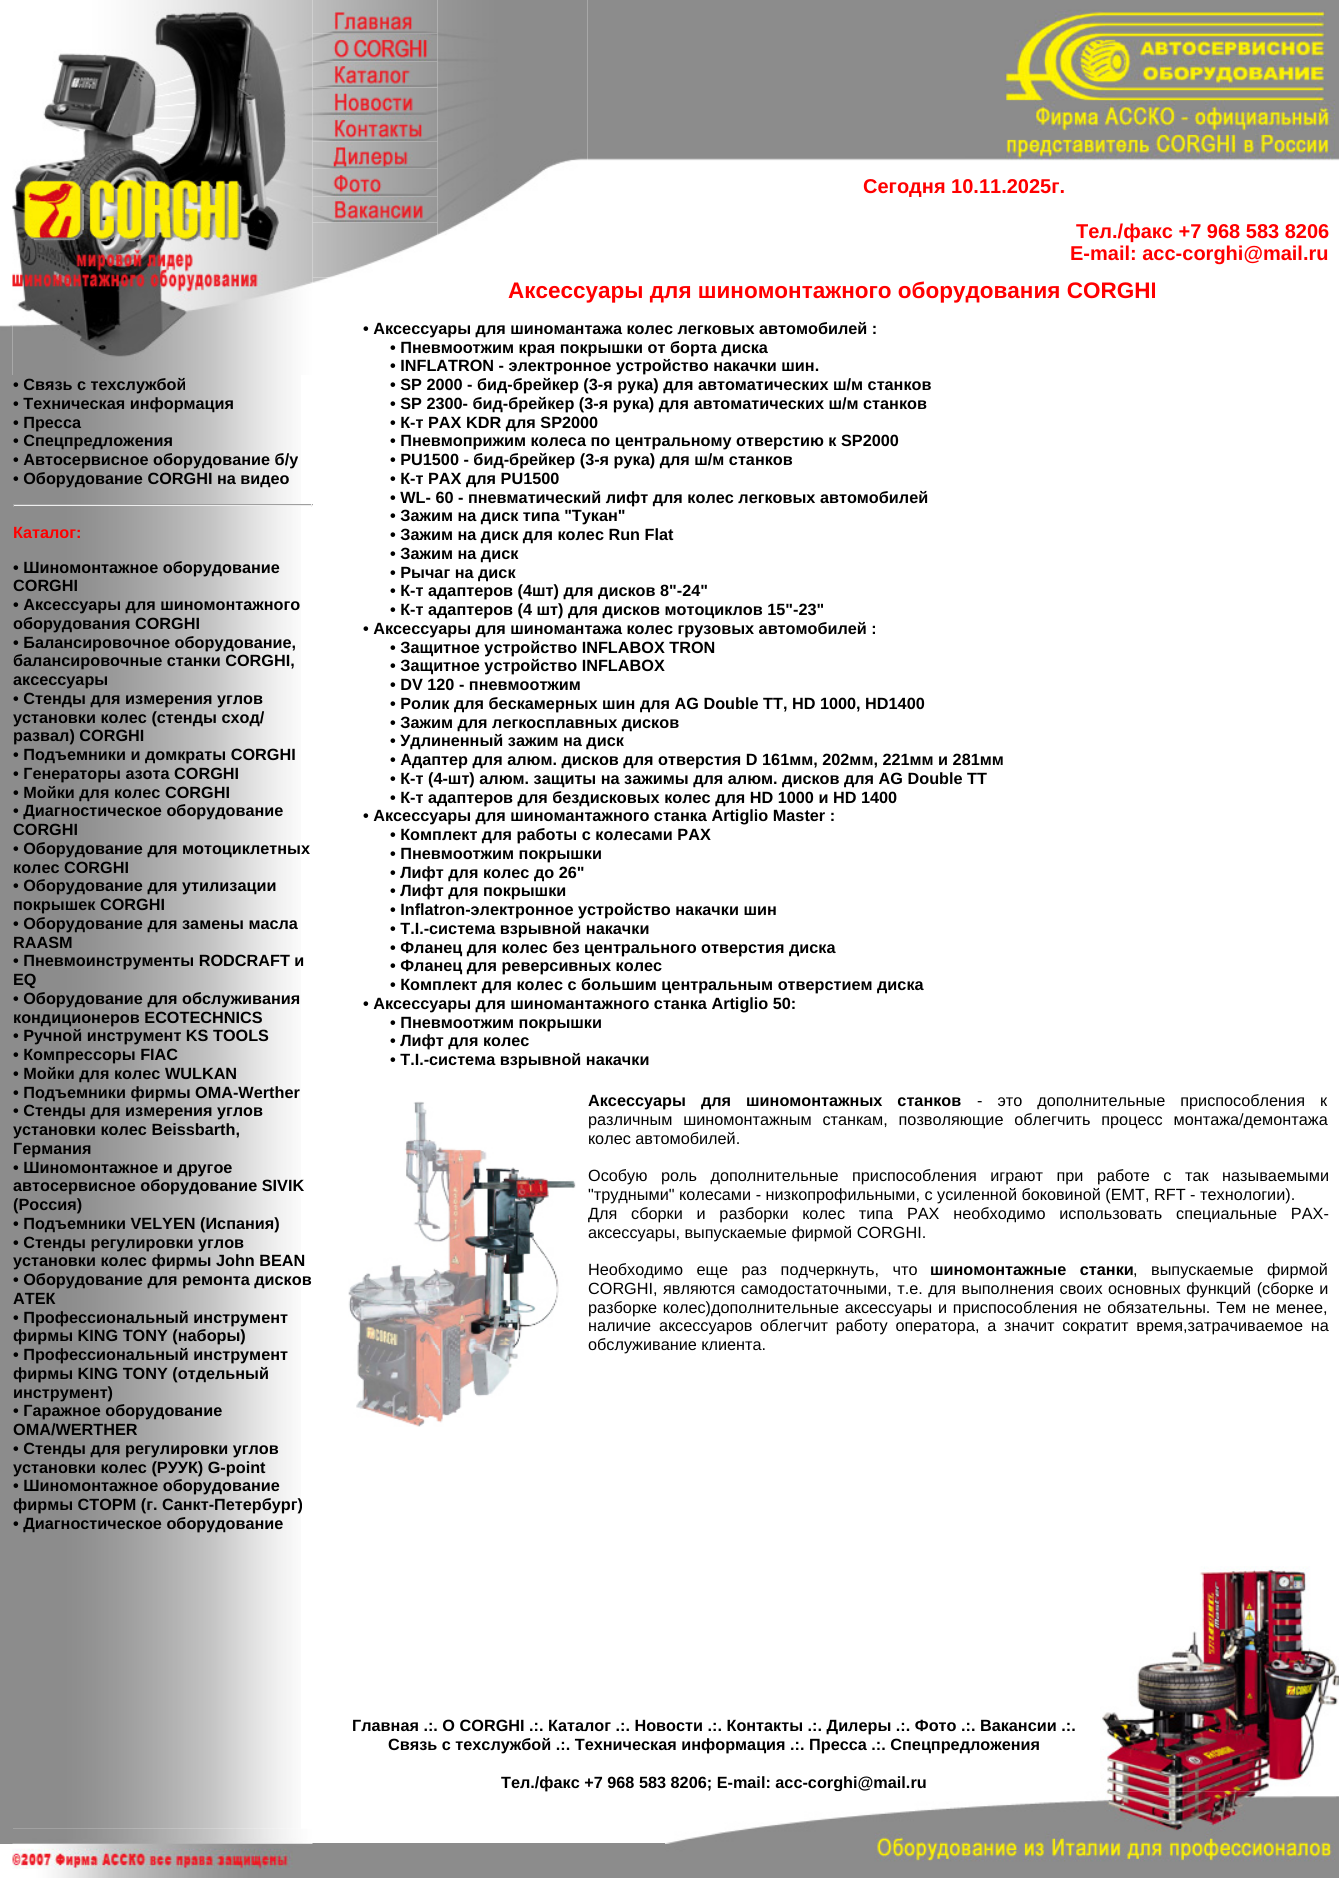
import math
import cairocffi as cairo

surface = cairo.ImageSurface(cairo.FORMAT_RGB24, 1339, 1878)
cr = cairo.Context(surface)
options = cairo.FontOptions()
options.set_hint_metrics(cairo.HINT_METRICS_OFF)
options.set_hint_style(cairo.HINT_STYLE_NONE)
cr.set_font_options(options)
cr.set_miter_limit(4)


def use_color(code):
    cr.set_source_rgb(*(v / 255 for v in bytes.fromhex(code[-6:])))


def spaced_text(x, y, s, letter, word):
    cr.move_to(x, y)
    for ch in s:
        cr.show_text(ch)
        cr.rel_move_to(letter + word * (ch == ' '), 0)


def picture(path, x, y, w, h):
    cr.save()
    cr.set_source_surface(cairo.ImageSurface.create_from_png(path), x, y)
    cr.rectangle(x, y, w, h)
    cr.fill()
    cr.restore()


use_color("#ffffff")
cr.paint()
picture("img1.png", 0, 325, 13, 50)
picture("img2.png", 12, 0, 301, 375)
use_color("#8c8c8c")
cr.rectangle(0, 375, 13, 1469)
cr.fill()
picture("img3.png", 13, 375, 288, 1454)
cr.select_font_face("Liberation Sans", cairo.FONT_SLANT_NORMAL, cairo.FONT_WEIGHT_BOLD)
cr.set_font_size(16.25)
use_color("#000000")
cr.move_to(13, 390)
cr.show_text("• Связь с техслужбой")
cr.move_to(13, 409)
cr.show_text("• Техническая информация")
cr.move_to(13, 428)
cr.show_text("• Пресса")
cr.move_to(13, 446)
cr.show_text("• Спецпредложения")
cr.move_to(13, 465)
cr.show_text("• Автосервисное оборудование б/у")
cr.move_to(13, 484)
cr.show_text("• Оборудование CORGHI на видео")
use_color("#9f9f9f")
cr.rectangle(13, 504, 300, 1)
cr.fill()
use_color("#eeeeee")
cr.rectangle(311, 504, 1, 3)
cr.fill()
cr.rectangle(13, 505, 300, 1)
cr.fill()
use_color("#9f9f9f")
cr.rectangle(13, 504, 1, 3)
cr.fill()
use_color("#ff0000")
cr.move_to(13, 538)
cr.show_text("Каталог:")
use_color("#000000")
cr.move_to(13, 573)
cr.show_text("• Шиномонтажное оборудование")
cr.move_to(13, 591)
cr.show_text("CORGHI")
cr.move_to(13, 610)
cr.show_text("• Аксессуары для шиномонтажного")
cr.move_to(13, 629)
cr.show_text("оборудования CORGHI")
cr.move_to(13, 648)
cr.show_text("• Балансировочное оборудование,")
cr.move_to(13, 666)
cr.show_text("балансировочные станки CORGHI,")
cr.move_to(13, 685)
cr.show_text("аксессуары")
cr.move_to(13, 704)
cr.show_text("• Стенды для измерения углов")
cr.move_to(13, 723)
cr.show_text("установки колес (стенды сход/")
cr.move_to(13, 741)
cr.show_text("развал) CORGHI")
cr.move_to(13, 760)
cr.show_text("• Подъемники и домкраты CORGHI")
cr.move_to(13, 779)
cr.show_text("• Генераторы азота CORGHI")
cr.move_to(13, 798)
cr.show_text("• Мойки для колес CORGHI")
cr.move_to(13, 816)
cr.show_text("• Диагностическое оборудование")
cr.move_to(13, 835)
cr.show_text("CORGHI")
cr.move_to(13, 854)
cr.show_text("• Оборудование для мотоциклетных")
cr.move_to(13, 873)
cr.show_text("колес CORGHI")
cr.move_to(13, 891)
cr.show_text("• Оборудование для утилизации")
cr.move_to(13, 910)
cr.show_text("покрышек CORGHI")
cr.move_to(13, 929)
cr.show_text("• Оборудование для замены масла")
cr.move_to(13, 948)
cr.show_text("RAASM")
cr.move_to(13, 966)
cr.show_text("• Пневмоинструменты RODCRAFT и")
cr.move_to(13, 985)
cr.show_text("EQ")
cr.move_to(13, 1004)
cr.show_text("• Оборудование для обслуживания")
cr.move_to(13, 1023)
cr.show_text("кондиционеров ECOTECHNICS")
cr.move_to(13, 1041)
cr.show_text("• Ручной инструмент KS TOOLS")
cr.move_to(13, 1060)
cr.show_text("• Компресcоры FIAC")
cr.move_to(13, 1079)
cr.show_text("• Мойки для колес WULKAN")
cr.move_to(13, 1098)
cr.show_text("• Подъемники фирмы OMA-Werther")
cr.move_to(13, 1116)
cr.show_text("• Стенды для измерения углов")
cr.move_to(13, 1135)
cr.show_text("установки колес Beissbarth,")
cr.move_to(13, 1154)
cr.show_text("Германия")
cr.move_to(13, 1173)
cr.show_text("• Шиномонтажное и другое")
cr.move_to(13, 1191)
cr.show_text("автосервисное оборудование SIVIK")
cr.move_to(13, 1210)
cr.show_text("(Россия)")
cr.move_to(13, 1229)
cr.show_text("• Подъемники VELYEN (Испания)")
cr.move_to(13, 1248)
cr.show_text("• Cтенды регулировки углов")
cr.move_to(13, 1266)
cr.show_text("установки колес фирмы John BEAN")
cr.move_to(13, 1285)
cr.show_text("• Оборудование для ремонта дисков")
cr.move_to(13, 1304)
cr.show_text("АТЕК")
cr.move_to(13, 1323)
cr.show_text("• Профессиональный инструмент")
cr.move_to(13, 1341)
cr.show_text("фирмы KING TONY (наборы)")
cr.move_to(13, 1360)
cr.show_text("• Профессиональный инструмент")
cr.move_to(13, 1379)
cr.show_text("фирмы KING TONY (отдельный")
cr.move_to(13, 1398)
cr.show_text("инструмент)")
cr.move_to(13, 1416)
cr.show_text("• Гаражное оборудование")
cr.move_to(13, 1435)
cr.show_text("ОМА/WERTHER")
cr.move_to(13, 1454)
cr.show_text("• Стенды для регулировки углов")
cr.move_to(13, 1473)
cr.show_text("установки колес (РУУК) G-point")
cr.move_to(13, 1491)
cr.show_text("• Шиномонтажное оборудование")
cr.move_to(13, 1510)
cr.show_text("фирмы СТОРМ (г. Санкт-Петербург)")
cr.move_to(13, 1529)
cr.show_text("• Диагностическое оборудование")
use_color("#8c8c8c")
cr.rectangle(312, 1843, 353, 35)
cr.fill()
picture("img4.png", 12, 1828, 301, 50)
picture("img5.png", 312, 0, 126, 34)
picture("img6.png", 312, 33, 126, 29)
picture("img7.png", 312, 61, 126, 27)
picture("img8.png", 312, 87, 126, 28)
picture("img9.png", 312, 115, 126, 27)
picture("img10.png", 312, 141, 126, 28)
picture("img11.png", 312, 168, 126, 29)
picture("img12.png", 312, 196, 126, 27)
picture("img13.png", 312, 222, 126, 56)
picture("img15.png", 587, 0, 378, 161)
picture("img14.png", 437, 0, 151, 236)
picture("img16.png", 965, 0, 374, 161)
cr.set_font_size(20)
use_color("#ff0000")
cr.move_to(863, 193)
cr.show_text("Сегодня 10.11.2025г.")
cr.move_to(1076, 238)
cr.show_text("Тел./факс +7 968 583 8206")
cr.move_to(1070, 260)
cr.show_text("E-mail: acc-corghi@mail.ru")
picture("img17.png", 312, 277, 20, 6)
cr.set_font_size(22.5)
cr.move_to(508, 298)
cr.show_text("Аксессуары для шиномонтажного оборудования CORGHI")
cr.set_font_size(16.25)
use_color("#000000")
cr.move_to(363, 334)
cr.show_text("• Аксессуары для шиномантажа колес легковых автомобилей :")
cr.move_to(390, 353)
cr.show_text("• Пневмоотжим края покрышки от борта диска")
cr.move_to(390, 371)
cr.show_text("• INFLATRON - электронное устройство накачки шин.")
cr.move_to(390, 390)
cr.show_text("• SP 2000 - бид-брейкер (3-я рука) для автоматических ш/м станков")
cr.move_to(390, 409)
cr.show_text("• SP 2300- бид-брейкер (3-я рука) для автоматических ш/м станков")
cr.move_to(390, 428)
cr.show_text("• К-т РАХ KDR для SP2000")
cr.move_to(390, 446)
cr.show_text("• Пневмоприжим колеса по центральному отверстию к SP2000")
cr.move_to(390, 465)
cr.show_text("• PU1500 - бид-брейкер (3-я рука) для ш/м станков")
cr.move_to(390, 484)
cr.show_text("• К-т РАХ для PU1500")
cr.move_to(390, 503)
cr.show_text("• WL- 60 - пневматический лифт для колес легковых автомобилей")
cr.move_to(390, 521)
cr.show_text("• Зажим на диск типа \"Тукан\"")
cr.move_to(390, 540)
cr.show_text("• Зажим на диск для колес Run Flat")
cr.move_to(390, 559)
cr.show_text("• Зажим на диск")
cr.move_to(390, 578)
cr.show_text("• Рычаг на диск")
cr.move_to(390, 596)
cr.show_text("• К-т адаптеров (4шт) для дисков 8\"-24\"")
cr.move_to(390, 615)
cr.show_text("• К-т адаптеров (4 шт) для дисков мотоциклов 15\"-23\"")
cr.move_to(363, 634)
cr.show_text("• Аксессуары для шиномантажа колес грузовых автомобилей :")
cr.move_to(390, 653)
cr.show_text("• Защитное устройство INFLABOX TRON")
cr.move_to(390, 671)
cr.show_text("• Защитное устройство INFLABOX")
cr.move_to(390, 690)
cr.show_text("• DV 120 - пневмоотжим")
cr.move_to(390, 709)
cr.show_text("• Ролик для бескамерных шин для AG Double TT, HD 1000, HD1400")
cr.move_to(390, 728)
cr.show_text("• Зажим для легкосплавных дисков")
cr.move_to(390, 746)
cr.show_text("• Удлиненный зажим на диск")
cr.move_to(390, 765)
cr.show_text("• Адаптер для алюм. дисков для отверстия D 161мм, 202мм, 221мм и 281мм")
cr.move_to(390, 784)
cr.show_text("• К-т (4-шт) алюм. защиты на зажимы для алюм. дисков для AG Double TT")
cr.move_to(390, 803)
cr.show_text("• К-т адаптеров для бездисковых колес для HD 1000 и HD 1400")
cr.move_to(363, 821)
cr.show_text("• Аксессуары для шиномантажного станка Artiglio Master :")
cr.move_to(390, 840)
cr.show_text("• Комплект для работы с колесами РАХ")
cr.move_to(390, 859)
cr.show_text("• Пневмоотжим покрышки")
cr.move_to(390, 878)
cr.show_text("• Лифт для колес до 26\"")
cr.move_to(390, 896)
cr.show_text("• Лифт для покрышки")
cr.move_to(390, 915)
cr.show_text("• Inflatron-электронное устройство накачки шин")
cr.move_to(390, 934)
cr.show_text("• T.I.-система взрывной накачки")
cr.move_to(390, 953)
cr.show_text("• Фланец для колес без центрального отверстия диска")
cr.move_to(390, 971)
cr.show_text("• Фланец для реверсивных колес")
cr.move_to(390, 990)
cr.show_text("• Комплект для колес с большим центральным отверстием диска")
cr.move_to(363, 1009)
cr.show_text("• Аксессуары для шиномантажного станка Artiglio 50:")
cr.move_to(390, 1028)
cr.show_text("• Пневмоотжим покрышки")
cr.move_to(390, 1046)
cr.show_text("• Лифт для колес")
cr.move_to(390, 1065)
cr.show_text("• T.I.-система взрывной накачки")
picture("img18.png", 348, 1101, 228, 326)
spaced_text(588, 1106, "Аксессуары для шиномонтажных станков", 0, 10.5)
cr.select_font_face("Liberation Sans")
spaced_text(977, 1106, "- это дополнительные приспособления к", 0, 10.5)
spaced_text(588, 1125, "различным шиномонтажным станкам, позволяющие облегчить процесс монтажа/демонтажа", 0, 6.25)
cr.move_to(588, 1144)
cr.show_text("колес автомобилей.")
spaced_text(588, 1181, "Особую роль дополнительные приспособления играют при работе с так называемыми", 0, 9)
cr.move_to(588, 1200)
cr.show_text("\"трудными\" колесами - низкопрофильными, с усиленной боковиной (ЕМТ, RFT - технологии).")
spaced_text(588, 1219, "Для сборки и разборки колес типа РАХ необходимо использовать специальные РАХ-", 0, 9.25)
cr.move_to(588, 1238)
cr.show_text("аксессуары, выпускаемые фирмой CORGHI.")
spaced_text(588, 1275, "Необходимо еще раз подчеркнуть, что", 0, 9)
cr.select_font_face("Liberation Sans", cairo.FONT_SLANT_NORMAL, cairo.FONT_WEIGHT_BOLD)
spaced_text(930, 1275, "шиномонтажные станки", 0, 9)
cr.select_font_face("Liberation Sans")
spaced_text(1133, 1275, ", выпускаемые фирмой", 0, 9)
spaced_text(588, 1294, "CORGHI, являются самодостаточными, т.е. для выполнения своих основных функций (сборке и", 0, 1)
spaced_text(588, 1313, "разборке колес)дополнительные аксессуары и приспособления не обязательны. Тем не менее,", 0, 1.25)
spaced_text(588, 1331, "наличие аксессуаров облегчит работу оператора, а значит сократит время,затрачиваемое на", 0, 3.25)
cr.move_to(588, 1350)
cr.show_text("обслуживание клиента.")
cr.select_font_face("Liberation Sans", cairo.FONT_SLANT_NORMAL, cairo.FONT_WEIGHT_BOLD)
cr.move_to(352, 1731)
cr.show_text("Главная .:. О CORGHI .:. Каталог .:. Новости .:. Контакты .:. Дилеры .:. Фото .:. Вакансии .:.")
cr.move_to(388, 1750)
cr.show_text("Связь с техслужбой .:. Техническая информация .:. Пресса .:. Спецпредложения")
cr.move_to(501, 1788)
cr.show_text("Тел./факс +7 968 583 8206; E-mail: acc-corghi@mail.ru")
picture("img19.png", 1100, 1566, 239, 226)
picture("img20.png", 665, 1791, 674, 87)
surface.write_to_png("result.png")
